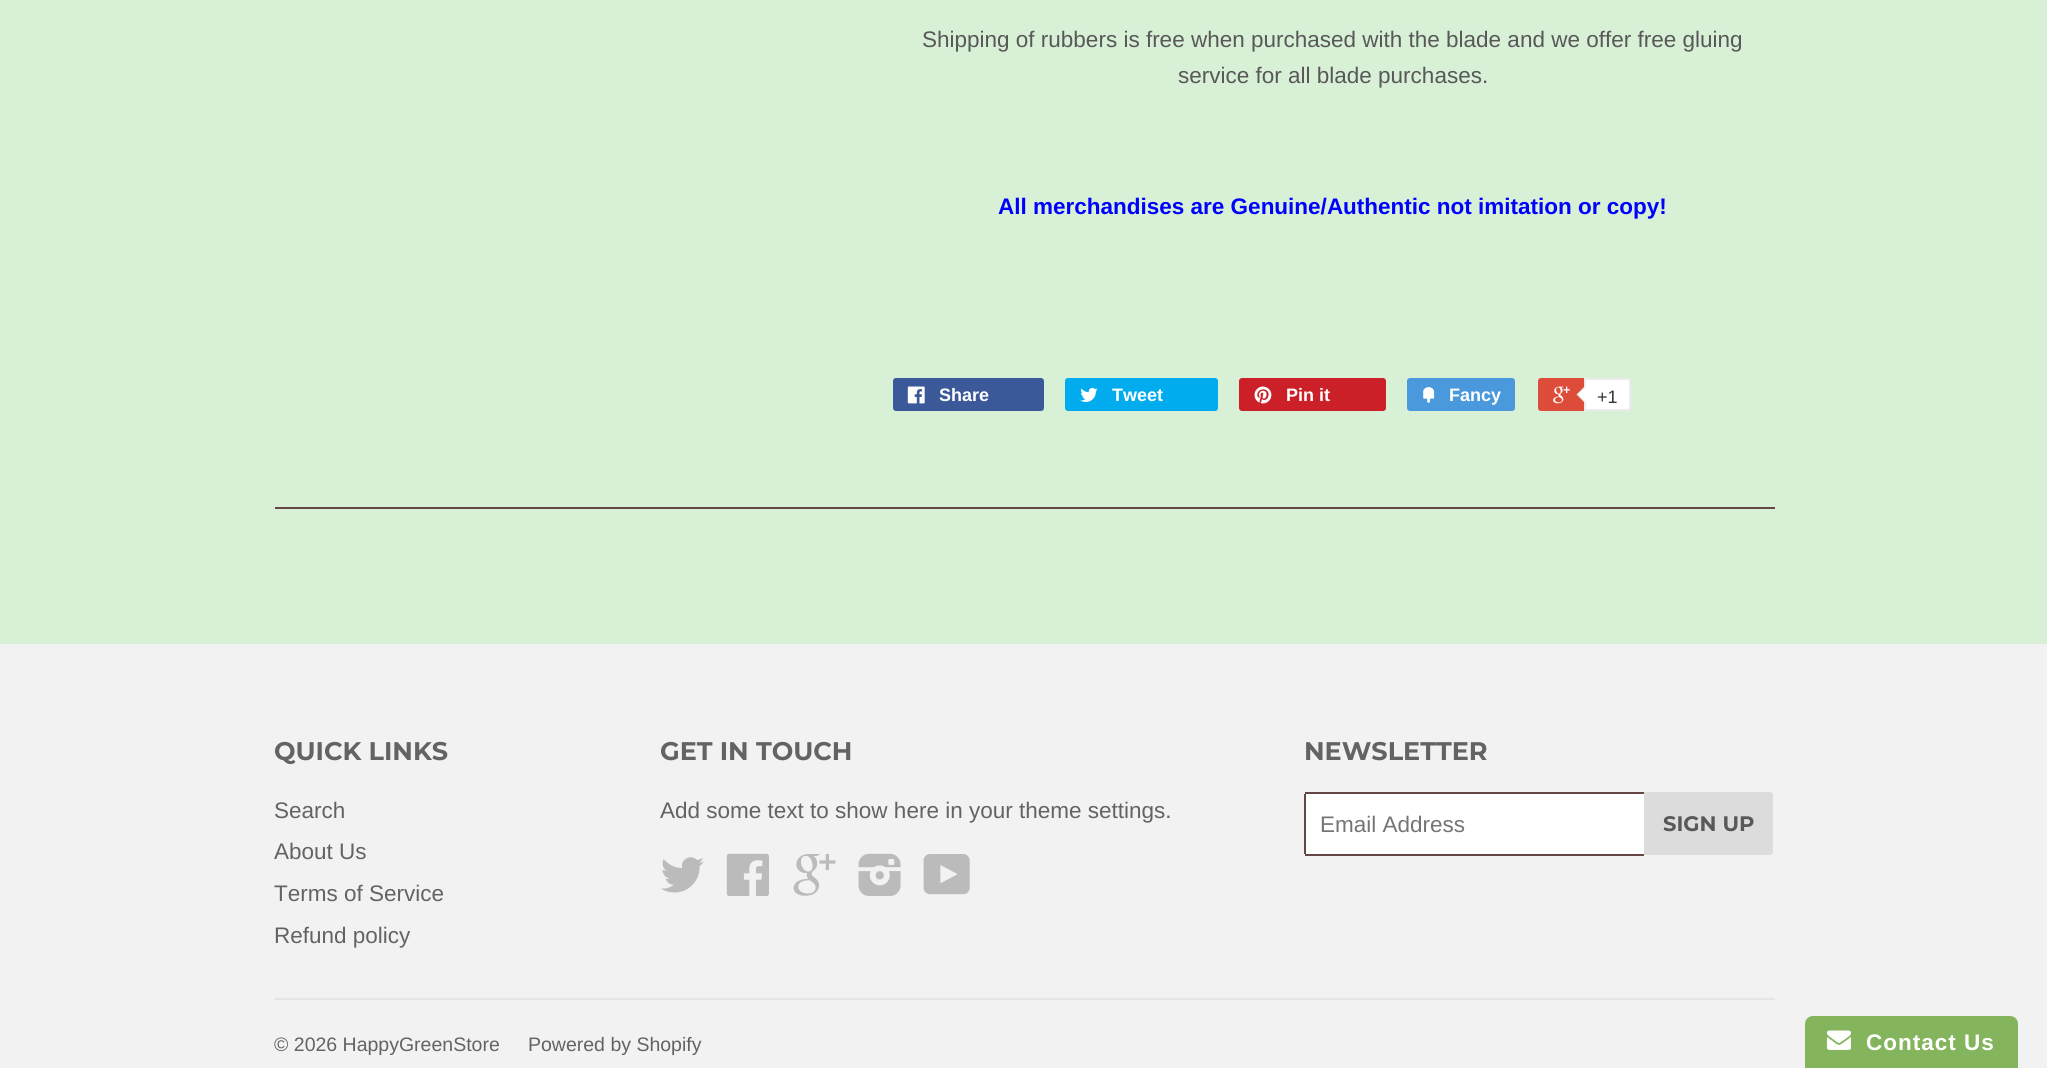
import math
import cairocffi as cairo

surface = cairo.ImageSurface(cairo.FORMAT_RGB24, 2047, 1068)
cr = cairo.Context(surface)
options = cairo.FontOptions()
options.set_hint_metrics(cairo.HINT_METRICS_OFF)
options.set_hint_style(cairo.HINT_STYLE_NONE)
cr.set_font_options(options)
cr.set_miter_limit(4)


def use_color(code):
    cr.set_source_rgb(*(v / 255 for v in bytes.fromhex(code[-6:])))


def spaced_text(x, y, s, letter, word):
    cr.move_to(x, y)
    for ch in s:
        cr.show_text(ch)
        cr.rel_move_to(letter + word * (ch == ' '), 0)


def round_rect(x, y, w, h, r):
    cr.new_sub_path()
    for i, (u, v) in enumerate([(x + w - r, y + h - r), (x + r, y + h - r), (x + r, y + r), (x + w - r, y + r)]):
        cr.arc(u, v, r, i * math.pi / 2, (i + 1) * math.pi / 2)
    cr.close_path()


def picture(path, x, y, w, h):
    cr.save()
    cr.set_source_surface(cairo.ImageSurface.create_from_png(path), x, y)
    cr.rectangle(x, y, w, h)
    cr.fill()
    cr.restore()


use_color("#d7f0d6")
cr.paint()
cr.select_font_face("Liberation Sans")
cr.set_font_size(22.5)
use_color("#585858")
cr.move_to(922, 47)
cr.show_text("Shipping of rubbers is free when purchased with the blade and we offer free gluing")
cr.move_to(1178, 83)
cr.show_text("service for all blade purchases.")
cr.select_font_face("Liberation Sans", cairo.FONT_SLANT_NORMAL, cairo.FONT_WEIGHT_BOLD)
use_color("#0000ff")
cr.move_to(998, 214)
cr.show_text("All merchandises are Genuine/Authentic not imitation or copy!")
use_color("#3b5998")
round_rect(893, 378, 151, 33, 3)
cr.fill()
picture("img1.png", 907, 386, 18, 18)
cr.set_font_size(18)
use_color("#ffffff")
cr.move_to(939, 401)
cr.show_text("Share")
use_color("#00aced")
round_rect(1065, 378, 153, 33, 3)
cr.fill()
picture("img2.png", 1080, 387, 18, 15)
use_color("#ffffff")
cr.move_to(1112, 401)
cr.show_text("Tweet")
use_color("#cb2027")
round_rect(1239, 378, 147, 33, 3)
cr.fill()
picture("img3.png", 1254, 386, 18, 18)
use_color("#ffffff")
cr.move_to(1286, 401)
cr.show_text("Pin it")
use_color("#4999dc")
round_rect(1407, 378, 108, 33, 3)
cr.fill()
picture("img4.png", 1423, 387, 12, 16)
use_color("#ffffff")
cr.move_to(1449, 401)
cr.show_text("Fancy")
use_color("#dd4b39")
round_rect(1538, 378, 90, 33, 3)
cr.fill()
picture("img5.png", 1553, 386, 17, 18)
use_color("#ffffff")
cr.new_path()
cr.move_to(1585, 379)
cr.line_to(1628, 379)
cr.curve_to(1629, 379, 1630, 380, 1630, 381)
cr.line_to(1630, 408)
cr.curve_to(1630, 409, 1629, 410, 1628, 410)
cr.line_to(1585, 410)
cr.close_path()
cr.fill_preserve()
use_color("#ececec")
cr.stroke()
cr.new_path()
cr.move_to(1585.5, 385.5)
cr.line_to(1585.5, 403.5)
cr.line_to(1576.5, 394.5)
cr.close_path()
cr.fill()
use_color("#ffffff")
cr.new_path()
cr.move_to(1587, 385.5)
cr.line_to(1587, 403.5)
cr.line_to(1578, 394.5)
cr.close_path()
cr.fill()
cr.select_font_face("Liberation Sans")
use_color("#333333")
cr.move_to(1597, 403)
cr.show_text("+1")
use_color("#664545")
cr.rectangle(275, 507, 1500, 2)
cr.fill()
use_color("#f2f2f2")
cr.rectangle(0, 644, 2047, 424)
cr.fill()
cr.select_font_face("Montserrat Thin")
cr.set_font_size(25.5)
use_color("#636363")
cr.move_to(274, 760)
cr.show_text("QUICK LINKS")
cr.select_font_face("Liberation Sans")
cr.set_font_size(22.5)
cr.move_to(274, 818)
cr.show_text("Search")
cr.move_to(274, 859)
cr.show_text("About Us")
cr.move_to(274, 901)
cr.show_text("Terms of Service")
cr.move_to(274, 943)
cr.show_text("Refund policy")
cr.select_font_face("Montserrat Thin")
cr.set_font_size(25.5)
cr.move_to(660, 760)
cr.show_text("GET IN TOUCH")
cr.select_font_face("Liberation Sans")
cr.set_font_size(22.5)
cr.move_to(660, 818)
cr.show_text("Add some text to show here in your theme settings.")
picture("img6.png", 661, 857, 43, 36)
picture("img7.png", 726, 853, 43, 43)
picture("img8.png", 793, 854, 43, 42)
picture("img9.png", 858, 853, 43, 43)
picture("img10.png", 923, 854, 47, 41)
cr.select_font_face("Montserrat Thin")
cr.set_font_size(25.5)
cr.move_to(1304, 760)
cr.show_text("NEWSLETTER")
use_color("#ffffff")
cr.new_path()
cr.move_to(1307, 792)
cr.line_to(1644, 792)
cr.line_to(1644, 855)
cr.line_to(1307, 855)
cr.curve_to(1305.5, 855, 1304, 853.5, 1304, 852)
cr.line_to(1304, 795)
cr.curve_to(1304, 793.5, 1305.5, 792, 1307, 792)
cr.close_path()
cr.fill()
use_color("#664545")
cr.rectangle(1305, 792, 339, 2)
cr.fill()
cr.rectangle(1305, 854, 339, 2)
cr.fill()
cr.rectangle(1304, 794, 2, 60)
cr.fill()
cr.select_font_face("Liberation Sans")
cr.set_font_size(22.5)
use_color("#757575")
cr.move_to(1320, 832)
cr.show_text("Email Address")
use_color("#dcdcdc")
cr.new_path()
cr.move_to(1644, 792)
cr.line_to(1770, 792)
cr.curve_to(1771.5, 792, 1773, 793.5, 1773, 795)
cr.line_to(1773, 852)
cr.curve_to(1773, 853.5, 1771.5, 855, 1770, 855)
cr.line_to(1644, 855)
cr.close_path()
cr.fill()
cr.select_font_face("Montserrat Thin")
cr.set_font_size(21)
use_color("#585858")
cr.move_to(1663, 831)
cr.show_text("SIGN UP")
use_color("#e5e5e5")
cr.rectangle(275, 998, 1500, 2)
cr.fill()
cr.select_font_face("Liberation Sans")
cr.set_font_size(19.5)
use_color("#636363")
cr.move_to(274, 1051)
cr.show_text("© 2026 HappyGreenStore")
cr.move_to(528, 1051)
cr.show_text("Powered by Shopify")
use_color("#84b45b")
cr.new_path()
cr.move_to(1813, 1016)
cr.line_to(2010, 1016)
cr.curve_to(2014.5, 1016, 2018, 1019.5, 2018, 1024)
cr.line_to(2018, 1068)
cr.line_to(1805, 1068)
cr.line_to(1805, 1024)
cr.curve_to(1805, 1019.5, 1808.5, 1016, 1813, 1016)
cr.close_path()
cr.fill()
picture("img11.png", 1826, 1030, 25, 20)
cr.select_font_face("Liberation Sans", cairo.FONT_SLANT_NORMAL, cairo.FONT_WEIGHT_BOLD)
cr.set_font_size(22.5)
use_color("#ffffff")
spaced_text(1866, 1050, "Contact Us", 1, 0)
surface.write_to_png("result.png")
